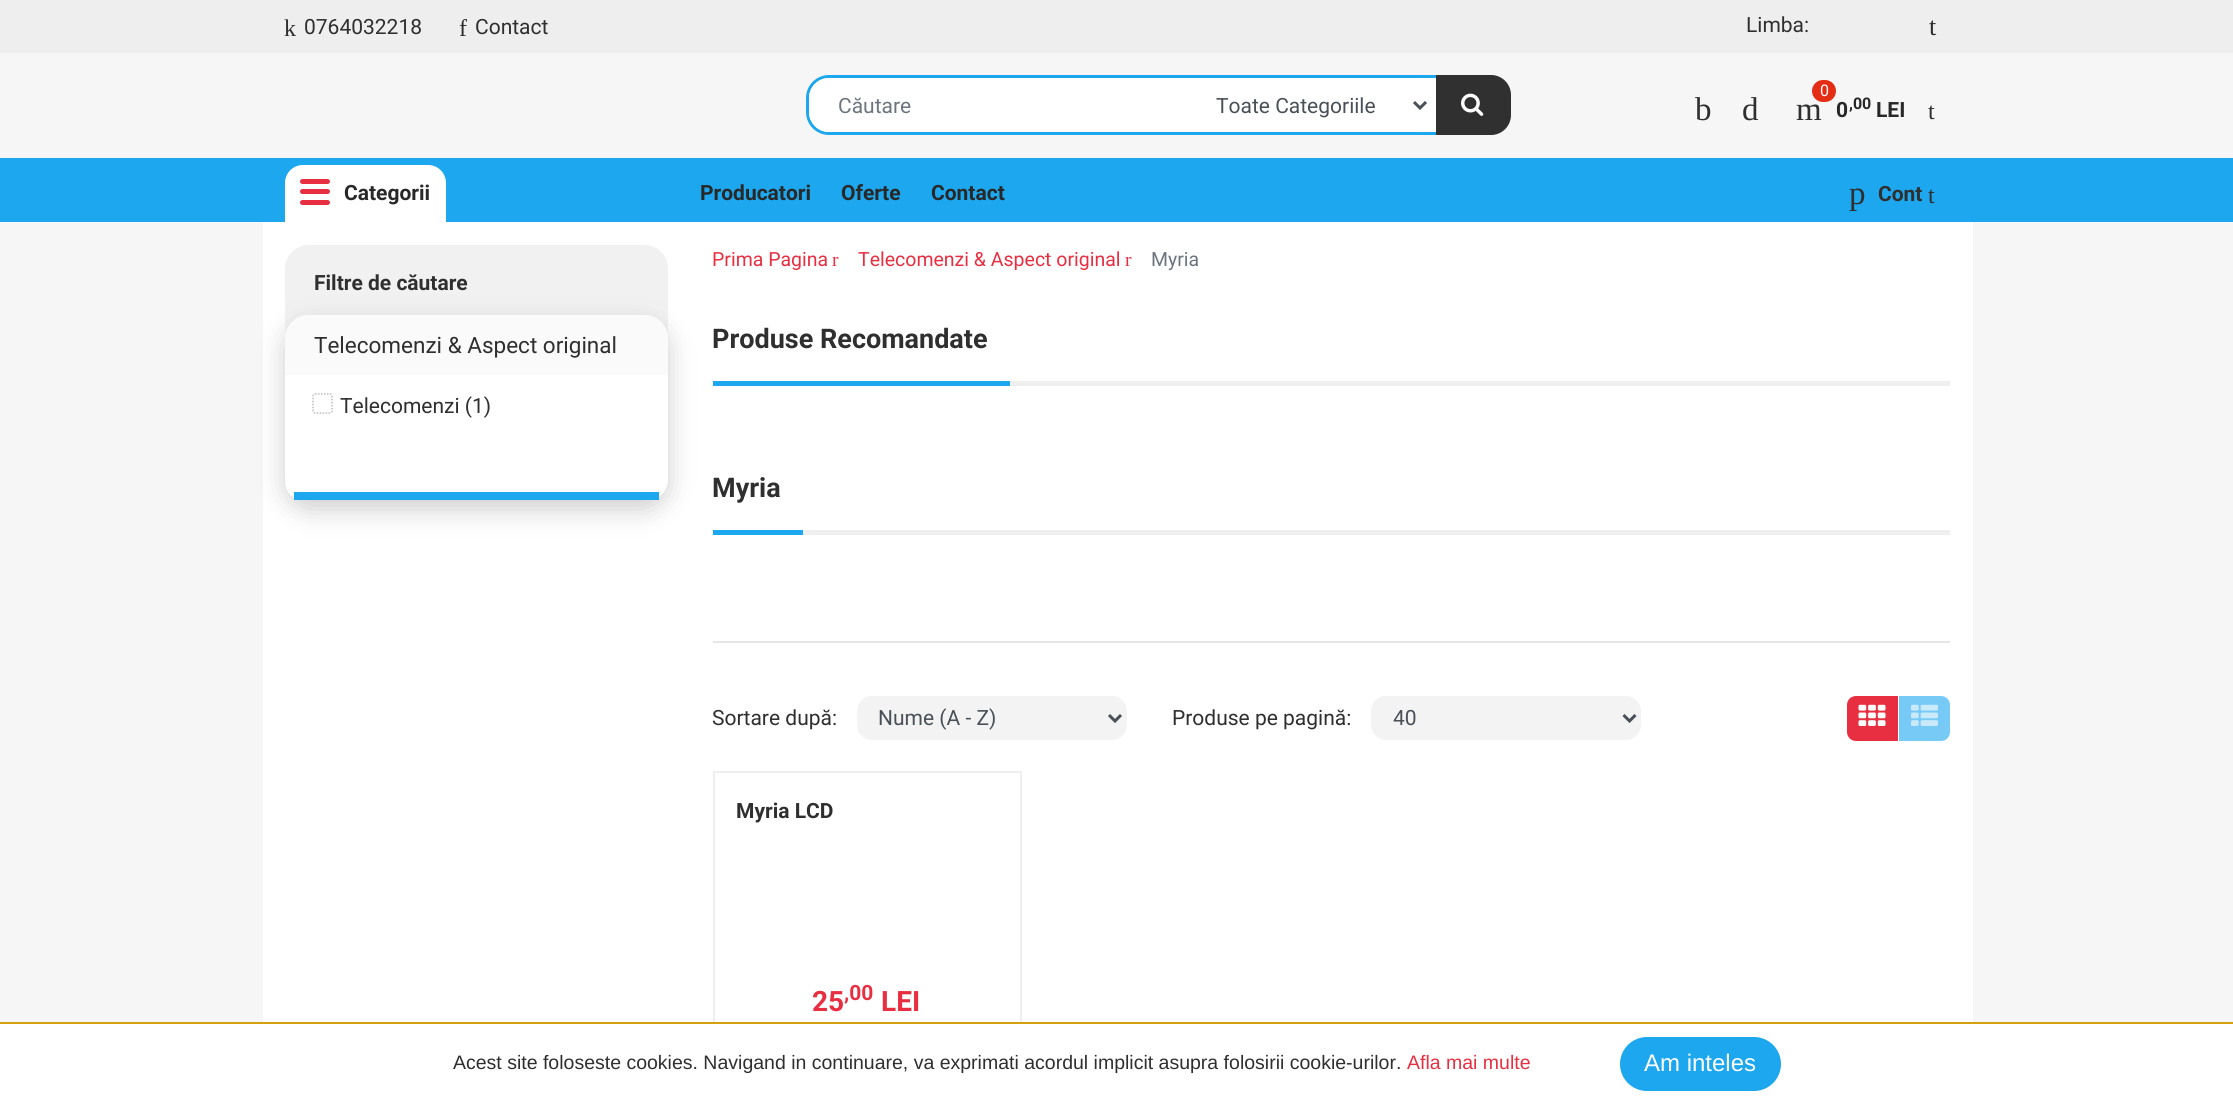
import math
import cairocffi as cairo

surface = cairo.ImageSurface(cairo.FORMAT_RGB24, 2233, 1103)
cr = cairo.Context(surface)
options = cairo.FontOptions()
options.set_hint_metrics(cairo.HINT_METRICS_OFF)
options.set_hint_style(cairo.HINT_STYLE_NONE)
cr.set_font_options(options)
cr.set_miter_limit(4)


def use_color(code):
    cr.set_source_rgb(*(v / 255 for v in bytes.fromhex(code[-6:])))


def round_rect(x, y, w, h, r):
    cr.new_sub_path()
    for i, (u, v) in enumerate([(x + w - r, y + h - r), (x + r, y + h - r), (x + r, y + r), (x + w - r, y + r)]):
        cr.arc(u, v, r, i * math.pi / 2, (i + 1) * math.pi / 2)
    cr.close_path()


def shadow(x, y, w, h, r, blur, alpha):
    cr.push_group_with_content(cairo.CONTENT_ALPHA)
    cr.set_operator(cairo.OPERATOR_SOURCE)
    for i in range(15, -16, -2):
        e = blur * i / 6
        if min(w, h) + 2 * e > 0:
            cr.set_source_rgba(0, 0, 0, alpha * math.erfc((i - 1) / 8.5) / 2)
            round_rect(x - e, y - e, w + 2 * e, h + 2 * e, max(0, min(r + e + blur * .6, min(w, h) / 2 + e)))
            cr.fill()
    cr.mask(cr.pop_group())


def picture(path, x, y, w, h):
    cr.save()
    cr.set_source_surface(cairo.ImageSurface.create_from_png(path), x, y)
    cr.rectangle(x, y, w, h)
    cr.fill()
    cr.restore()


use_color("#f6f6f6")
cr.paint()
use_color("#eeeeee")
cr.rectangle(0, 0, 2233, 53)
cr.fill()
cr.select_font_face("Liberation Serif")
cr.set_font_size(24)
use_color("#2f2f2f")
cr.move_to(284, 36)
cr.show_text("k")
cr.select_font_face("Roboto")
cr.set_font_size(21)
cr.move_to(304, 34)
cr.show_text("0764032218")
cr.select_font_face("Liberation Serif")
cr.set_font_size(24)
cr.move_to(459, 36)
cr.show_text("f")
cr.select_font_face("Roboto")
cr.set_font_size(21)
cr.move_to(475, 34)
cr.show_text("Contact")
cr.move_to(1746, 32)
cr.show_text("Limba:")
cr.select_font_face("Liberation Serif")
cr.set_font_size(26)
cr.move_to(1929, 35)
cr.show_text("t")
round_rect(807.5, 76.5, 702, 57, 21.5)
use_color("#1da7ee")
cr.set_line_width(3)
cr.stroke()
use_color("#ffffff")
cr.new_path()
cr.move_to(829, 78)
cr.line_to(1436, 78)
cr.line_to(1436, 132)
cr.line_to(829, 132)
cr.curve_to(818, 132, 809, 123, 809, 112)
cr.line_to(809, 98)
cr.curve_to(809, 87, 818, 78, 829, 78)
cr.close_path()
cr.fill()
cr.select_font_face("Roboto")
cr.set_font_size(21)
use_color("#6c757d")
cr.move_to(838, 113)
cr.show_text("Căutare")
cr.new_path()
cr.move_to(1414, 102)
cr.line_to(1420, 108)
cr.line_to(1426, 102)
use_color("#495057")
cr.stroke()
cr.move_to(1216, 113)
cr.show_text("Toate Categoriile")
use_color("#303030")
cr.new_path()
cr.move_to(1437, 76)
cr.line_to(1491, 76)
cr.curve_to(1501.5, 76, 1510, 84.5, 1510, 95)
cr.line_to(1510, 115)
cr.curve_to(1510, 125.5, 1501.5, 134, 1491, 134)
cr.line_to(1437, 134)
cr.close_path()
cr.fill_preserve()
cr.set_line_width(2)
cr.stroke()
picture("img1.png", 1461, 93, 23, 23)
cr.select_font_face("Liberation Serif")
cr.set_font_size(33)
use_color("#2f2f2f")
cr.move_to(1695, 120)
cr.show_text("b")
cr.move_to(1742, 120)
cr.show_text("d")
use_color("#e42d15")
round_rect(1812, 80, 24, 22, 11)
cr.fill()
cr.select_font_face("Roboto")
cr.set_font_size(16)
use_color("#ffffff")
cr.move_to(1820, 96)
cr.show_text("0")
cr.select_font_face("Liberation Serif")
cr.set_font_size(33)
use_color("#2f2f2f")
cr.move_to(1796, 120)
cr.show_text("m")
cr.select_font_face("Roboto", cairo.FONT_SLANT_NORMAL, cairo.FONT_WEIGHT_BOLD)
cr.set_font_size(21)
use_color("#282828")
cr.move_to(1836, 117)
cr.show_text("0")
cr.set_font_size(16)
cr.move_to(1849, 109)
cr.show_text(",00")
cr.set_font_size(21)
cr.move_to(1876, 117)
cr.show_text("LEI")
cr.select_font_face("Liberation Serif")
cr.set_font_size(24)
use_color("#2f2f2f")
cr.move_to(1928, 119)
cr.show_text("t")
use_color("#1da7ee")
cr.rectangle(0, 158, 2233, 64)
cr.fill()
use_color("#ffffff")
cr.new_path()
cr.move_to(303, 165)
cr.line_to(428, 165)
cr.curve_to(438, 165, 446, 173, 446, 183)
cr.line_to(446, 222)
cr.line_to(285, 222)
cr.line_to(285, 183)
cr.curve_to(285, 173, 293, 165, 303, 165)
cr.close_path()
cr.fill()
use_color("#e82f41")
round_rect(300, 179, 30, 5, 2.5)
cr.fill()
round_rect(300, 189, 30, 5, 2.5)
cr.fill()
round_rect(300, 200, 30, 5, 2.5)
cr.fill()
cr.select_font_face("Roboto", cairo.FONT_SLANT_NORMAL, cairo.FONT_WEIGHT_BOLD)
cr.set_font_size(21)
use_color("#282828")
cr.move_to(344, 200)
cr.show_text("Categorii")
cr.move_to(700, 200)
cr.show_text("Producatori")
cr.move_to(841, 200)
cr.show_text("Oferte")
cr.move_to(931, 200)
cr.show_text("Contact")
cr.select_font_face("Liberation Serif")
cr.set_font_size(33)
use_color("#2f2f2f")
cr.move_to(1849, 204)
cr.show_text("p")
cr.select_font_face("Roboto", cairo.FONT_SLANT_NORMAL, cairo.FONT_WEIGHT_BOLD)
cr.set_font_size(21)
cr.move_to(1878, 201)
cr.show_text("Cont")
cr.select_font_face("Liberation Serif")
cr.set_font_size(24)
cr.move_to(1928, 203)
cr.show_text("t")
use_color("#ffffff")
cr.rectangle(263, 222, 1710, 800)
cr.fill()
use_color("#f1f1f1")
cr.new_path()
cr.move_to(309, 245)
cr.line_to(644, 245)
cr.curve_to(657.5, 245, 668, 255.5, 668, 269)
cr.line_to(668, 335)
cr.line_to(285, 335)
cr.line_to(285, 269)
cr.curve_to(285, 255.5, 295.5, 245, 309, 245)
cr.close_path()
cr.fill()
cr.select_font_face("Roboto", cairo.FONT_SLANT_NORMAL, cairo.FONT_WEIGHT_BOLD)
cr.set_font_size(21)
use_color("#2f2f2f")
cr.move_to(314, 290)
cr.show_text("Filtre de căutare")
use_color("#cecece")
shadow(285, 324, 383, 185, 24, 13, 1)
use_color("#ffffff")
cr.new_path()
cr.move_to(309, 315)
cr.line_to(644, 315)
cr.curve_to(657.5, 315, 668, 325.5, 668, 339)
cr.line_to(668, 480)
cr.curve_to(668, 491, 659, 500, 648, 500)
cr.line_to(303, 500)
cr.curve_to(293, 500, 285, 492, 285, 482)
cr.line_to(285, 339)
cr.curve_to(285, 325.5, 295.5, 315, 309, 315)
cr.close_path()
cr.fill()
use_color("#1da7ee")
cr.rectangle(294, 492, 365, 8)
cr.fill()
use_color("#fafafa")
cr.new_path()
cr.move_to(309, 315)
cr.curve_to(296, 315, 285, 326, 285, 339)
cr.line_to(285, 375)
cr.line_to(668, 375)
cr.line_to(668, 339)
cr.curve_to(668, 326, 657, 315, 644, 315)
cr.close_path()
cr.fill()
cr.select_font_face("Roboto")
cr.set_font_size(22.5)
use_color("#2f2f2f")
cr.move_to(314, 353)
cr.show_text("Telecomenzi & Aspect original")
cr.new_path()
cr.move_to(315, 394)
cr.line_to(330, 394)
cr.curve_to(331, 394, 332, 395, 332, 396)
cr.line_to(332, 411)
cr.curve_to(332, 412, 331, 413, 330, 413)
cr.line_to(315, 413)
cr.curve_to(314, 413, 313, 412, 313, 411)
cr.line_to(313, 396)
cr.curve_to(313, 395, 314, 394, 315, 394)
cr.close_path()
use_color("#bbbbbb")
cr.set_line_width(1.5)
cr.set_dash([1.5, 1.5])
cr.stroke()
cr.set_font_size(21)
use_color("#2f2f2f")
cr.move_to(340, 413)
cr.show_text("Telecomenzi (1)")
cr.set_font_size(19.5)
use_color("#e82f41")
cr.move_to(712, 266)
cr.show_text("Prima Pagina")
cr.select_font_face("Liberation Serif")
cr.move_to(832, 266)
cr.show_text("r")
cr.select_font_face("Roboto")
cr.move_to(858, 266)
cr.show_text("Telecomenzi & Aspect original")
cr.select_font_face("Liberation Serif")
cr.move_to(1125, 266)
cr.show_text("r")
cr.select_font_face("Roboto")
use_color("#6c757d")
cr.move_to(1151, 266)
cr.show_text("Myria")
use_color("#efefef")
cr.rectangle(1010, 381, 940, 5)
cr.fill()
use_color("#1da7ee")
cr.rectangle(713, 381, 297, 5)
cr.fill()
cr.select_font_face("Roboto", cairo.FONT_SLANT_NORMAL, cairo.FONT_WEIGHT_BOLD)
cr.set_font_size(27)
use_color("#2f2f2f")
cr.move_to(712, 348)
cr.show_text("Produse Recomandate")
use_color("#efefef")
cr.rectangle(803, 530, 1147, 5)
cr.fill()
use_color("#1da7ee")
cr.rectangle(713, 530, 90, 5)
cr.fill()
use_color("#2f2f2f")
cr.move_to(712, 497)
cr.show_text("Myria")
use_color("#e6e6e6")
cr.rectangle(713, 641, 1237, 2)
cr.fill()
cr.select_font_face("Roboto")
cr.set_font_size(21)
use_color("#2f2f2f")
cr.move_to(712, 725)
cr.show_text("Sortare după:")
use_color("#f3f3f3")
round_rect(857, 696, 270, 44, 15)
cr.fill()
cr.new_path()
cr.move_to(1109, 715)
cr.line_to(1115, 721)
cr.line_to(1121, 715)
use_color("#495057")
cr.set_line_width(3)
cr.set_dash([])
cr.stroke()
cr.move_to(878, 725)
cr.show_text("Nume (A - Z)")
use_color("#2f2f2f")
cr.move_to(1172, 725)
cr.show_text("Produse pe pagină:")
use_color("#f3f3f3")
round_rect(1371, 696, 270, 44, 15)
cr.fill()
cr.new_path()
cr.move_to(1623.5, 715)
cr.line_to(1629.5, 721)
cr.line_to(1635.5, 715)
use_color("#495057")
cr.stroke()
cr.move_to(1393, 725)
cr.show_text("40")
use_color("#e82f41")
cr.new_path()
cr.move_to(1856, 696)
cr.line_to(1898, 696)
cr.line_to(1898, 741)
cr.line_to(1856, 741)
cr.curve_to(1851, 741, 1847, 737, 1847, 732)
cr.line_to(1847, 705)
cr.curve_to(1847, 700, 1851, 696, 1856, 696)
cr.close_path()
cr.fill()
picture("img2.png", 1858, 704, 28, 22)
use_color("#77caf5")
cr.new_path()
cr.move_to(1899, 696)
cr.line_to(1941, 696)
cr.curve_to(1946, 696, 1950, 700, 1950, 705)
cr.line_to(1950, 732)
cr.curve_to(1950, 737, 1946, 741, 1941, 741)
cr.line_to(1899, 741)
cr.close_path()
cr.fill()
picture("img3.png", 1911, 704, 27, 22)
cr.rectangle(714, 772, 307, 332)
use_color("#efefef")
cr.set_line_width(2)
cr.stroke()
cr.select_font_face("Roboto", cairo.FONT_SLANT_NORMAL, cairo.FONT_WEIGHT_BOLD)
use_color("#2f2f2f")
cr.move_to(736, 818)
cr.show_text("Myria LCD")
cr.set_font_size(28)
use_color("#e82f41")
cr.move_to(812, 1011)
cr.show_text("25")
cr.set_font_size(21)
cr.move_to(844, 1000)
cr.show_text(",00")
cr.set_font_size(28)
cr.move_to(881, 1011)
cr.show_text("LEI")
use_color("#ffffff")
cr.rectangle(0, 1024, 2233, 79)
cr.fill()
use_color("#d59f0f")
cr.rectangle(0, 1022, 2233, 2)
cr.fill()
cr.select_font_face("Liberation Sans")
cr.set_font_size(19.5)
use_color("#2f2f2f")
cr.move_to(453, 1069)
cr.show_text("Acest site foloseste cookies. Navigand in continuare, va exprimati acordul implicit asupra folosirii cookie-urilor.")
use_color("#e82f41")
cr.move_to(1407, 1069)
cr.show_text("Afla mai multe")
use_color("#1da7ee")
round_rect(1621, 1038, 159, 52, 26)
cr.fill_preserve()
cr.stroke()
cr.set_font_size(24)
use_color("#ffffff")
cr.move_to(1644, 1071)
cr.show_text("Am inteles")
surface.write_to_png("result.png")
